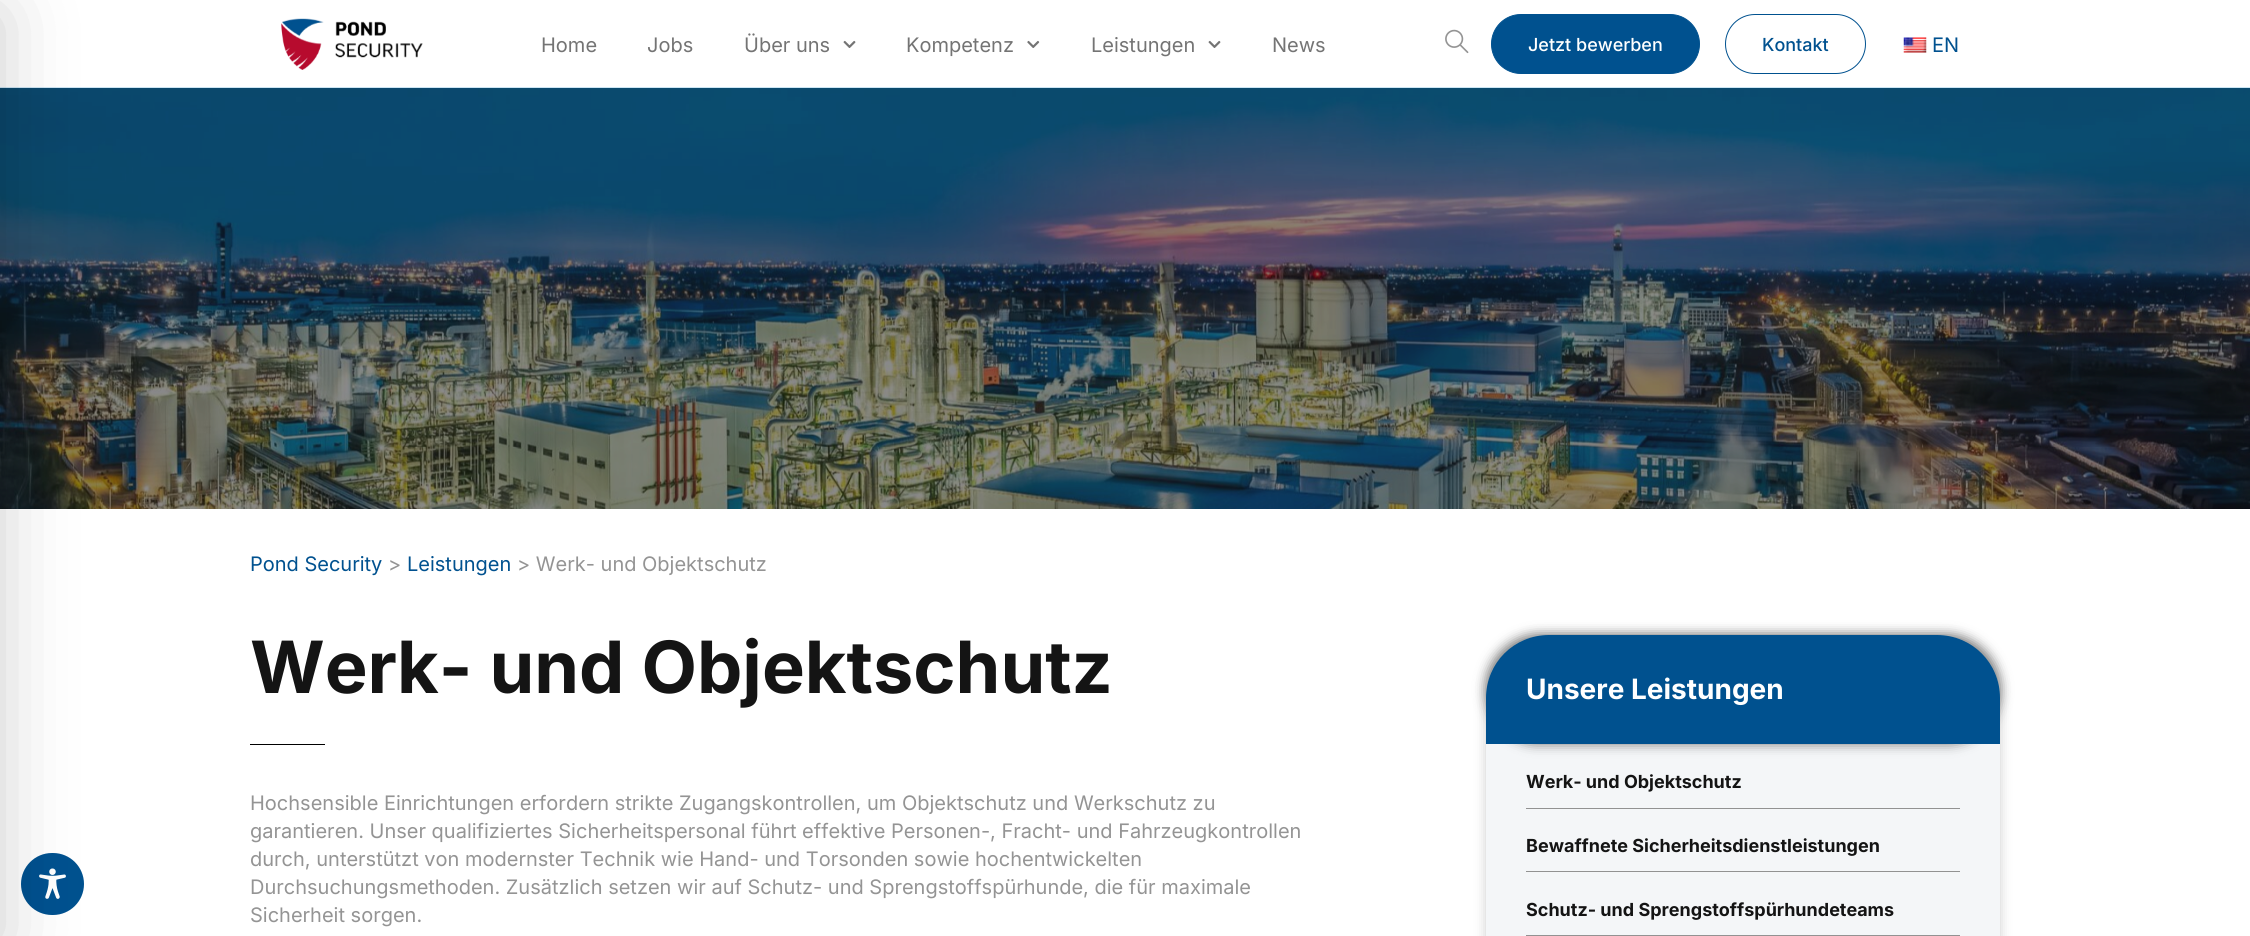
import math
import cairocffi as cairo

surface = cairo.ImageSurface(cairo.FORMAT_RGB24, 2250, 936)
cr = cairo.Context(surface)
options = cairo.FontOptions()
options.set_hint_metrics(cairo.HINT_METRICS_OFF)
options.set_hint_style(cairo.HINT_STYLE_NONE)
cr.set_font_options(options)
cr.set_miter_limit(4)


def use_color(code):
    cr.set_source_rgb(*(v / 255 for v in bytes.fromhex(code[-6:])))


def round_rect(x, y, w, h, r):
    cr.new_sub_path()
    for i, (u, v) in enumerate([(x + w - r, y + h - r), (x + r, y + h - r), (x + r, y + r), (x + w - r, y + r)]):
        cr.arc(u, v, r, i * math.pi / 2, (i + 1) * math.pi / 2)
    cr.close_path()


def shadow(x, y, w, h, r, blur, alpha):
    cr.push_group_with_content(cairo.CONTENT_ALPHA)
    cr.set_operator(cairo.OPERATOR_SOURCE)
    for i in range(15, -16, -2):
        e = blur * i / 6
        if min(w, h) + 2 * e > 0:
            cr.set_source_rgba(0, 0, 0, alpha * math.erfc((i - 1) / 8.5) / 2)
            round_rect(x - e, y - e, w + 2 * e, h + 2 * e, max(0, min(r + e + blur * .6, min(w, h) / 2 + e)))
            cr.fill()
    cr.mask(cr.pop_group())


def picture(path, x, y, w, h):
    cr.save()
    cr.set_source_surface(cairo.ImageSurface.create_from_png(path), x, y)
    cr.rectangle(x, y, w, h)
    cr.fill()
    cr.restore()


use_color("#ffffff")
cr.paint()
picture("img7.png", 0, 87, 2250, 422)
cr.set_source_rgba(1, 1, 1, 0.8)
cr.rectangle(0, 87, 2250, 1)
cr.fill()
use_color("#00518f")
round_rect(21, 853, 63, 62, 31)
cr.fill()
picture("img6.png", 39, 868, 27, 31)
use_color("#000000")
shadow(-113, 13, 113, 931, 0, 37.5, 0.2)
picture("img1.png", 281, 18, 142, 52)
cr.select_font_face("Inter")
cr.set_font_size(20)
use_color("#747474")
cr.move_to(541, 52)
cr.show_text("Home")
cr.move_to(647, 52)
cr.show_text("Jobs")
cr.move_to(744, 52)
cr.show_text("Über uns")
picture("img2.png", 843, 40, 13, 8)
cr.move_to(906, 52)
cr.show_text("Kompetenz")
picture("img3.png", 1027, 40, 13, 8)
cr.move_to(1091, 52)
cr.show_text("Leistungen")
picture("img2.png", 1208, 40, 13, 8)
cr.move_to(1272, 52)
cr.show_text("News")
picture("img4.png", 1445, 29, 24, 25)
use_color("#00518f")
round_rect(1491.5, 14.5, 208, 59, 29.5)
cr.fill_preserve()
cr.set_line_width(1)
cr.stroke()
cr.select_font_face("Inter Medium")
cr.set_font_size(18)
use_color("#ffffff")
cr.move_to(1528, 51)
cr.show_text("Jetzt bewerben")
round_rect(1725.5, 14.5, 140, 59, 29.5)
use_color("#00518f")
cr.stroke()
cr.move_to(1762, 51)
cr.show_text("Kontakt")
picture("img5.png", 1903, 37, 24, 16)
cr.select_font_face("Inter")
cr.set_font_size(20)
cr.move_to(1932, 52)
cr.show_text("EN")
cr.move_to(250, 571)
cr.show_text("Pond Security")
use_color("#949494")
cr.move_to(388, 571)
cr.show_text(">")
use_color("#00518f")
cr.move_to(407, 571)
cr.show_text("Leistungen")
use_color("#949494")
cr.move_to(517, 571)
cr.show_text("> Werk- und Objektschutz")
cr.select_font_face("Inter", cairo.FONT_SLANT_NORMAL, cairo.FONT_WEIGHT_BOLD)
cr.set_font_size(72)
use_color("#141414")
cr.move_to(250, 693)
cr.show_text("Werk- und Objektschutz")
use_color("#000000")
cr.rectangle(250, 744, 75, 1)
cr.fill()
cr.select_font_face("Inter")
cr.set_font_size(20)
use_color("#949494")
cr.move_to(250, 810)
cr.show_text("Hochsensible Einrichtungen erfordern strikte Zugangskontrollen, um Objektschutz und Werkschutz zu")
cr.move_to(250, 838)
cr.show_text("garantieren. Unser qualifiziertes Sicherheitspersonal führt effektive Personen-, Fracht- und Fahrzeugkontrollen")
cr.move_to(250, 866)
cr.show_text("durch, unterstützt von modernster Technik wie Hand- und Torsonden sowie hochentwickelten")
cr.move_to(250, 894)
cr.show_text("Durchsuchungsmethoden. Zusätzlich setzen wir auf Schutz- und Sprengstoffspürhunde, die für maximale")
cr.move_to(250, 922)
cr.show_text("Sicherheit sorgen.")
cr.save()
cr.set_fill_rule(cairo.FILL_RULE_EVEN_ODD)
cr.new_path()
cr.move_to(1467, 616)
cr.line_to(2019, 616)
cr.line_to(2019, 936)
cr.line_to(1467, 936)
cr.close_path()
cr.move_to(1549, 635)
cr.line_to(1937, 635)
cr.curve_to(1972, 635, 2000, 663, 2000, 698)
cr.line_to(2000, 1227)
cr.curve_to(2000, 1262, 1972, 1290, 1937, 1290)
cr.line_to(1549, 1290)
cr.curve_to(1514, 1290, 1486, 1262, 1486, 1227)
cr.line_to(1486, 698)
cr.curve_to(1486, 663, 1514, 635, 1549, 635)
cr.close_path()
cr.clip()
use_color("#000000")
shadow(1486, 635, 514, 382, 63, 6, 0.2)
cr.restore()
cr.set_source_rgba(0.918, 0.937, 0.953, 0.5)
round_rect(1486, 635, 514, 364, 63)
cr.fill()
use_color("#000000")
shadow(1486, 635, 514, 109, 63, 6, 0.5)
use_color("#00518f")
cr.new_path()
cr.move_to(1549, 635)
cr.line_to(1937, 635)
cr.curve_to(1972, 635, 2000, 663, 2000, 698)
cr.line_to(2000, 744)
cr.line_to(1486, 744)
cr.line_to(1486, 698)
cr.curve_to(1486, 663, 1514, 635, 1549, 635)
cr.close_path()
cr.fill()
cr.select_font_face("Inter", cairo.FONT_SLANT_NORMAL, cairo.FONT_WEIGHT_BOLD)
cr.set_font_size(28)
use_color("#ffffff")
cr.move_to(1526, 699)
cr.show_text("Unsere Leistungen")
use_color("#929292")
cr.rectangle(1526, 808, 434, 1)
cr.fill()
cr.set_font_size(18)
use_color("#141414")
cr.move_to(1526, 788)
cr.show_text("Werk- und Objektschutz")
use_color("#929292")
cr.rectangle(1526, 871, 434, 1)
cr.fill()
use_color("#141414")
cr.move_to(1526, 852)
cr.show_text("Bewaffnete Sicherheitsdienstleistungen")
use_color("#929292")
cr.rectangle(1526, 935, 434, 1)
cr.fill()
use_color("#141414")
cr.move_to(1526, 916)
cr.show_text("Schutz- und Sprengstoffspürhundeteams")
surface.write_to_png("result.png")
